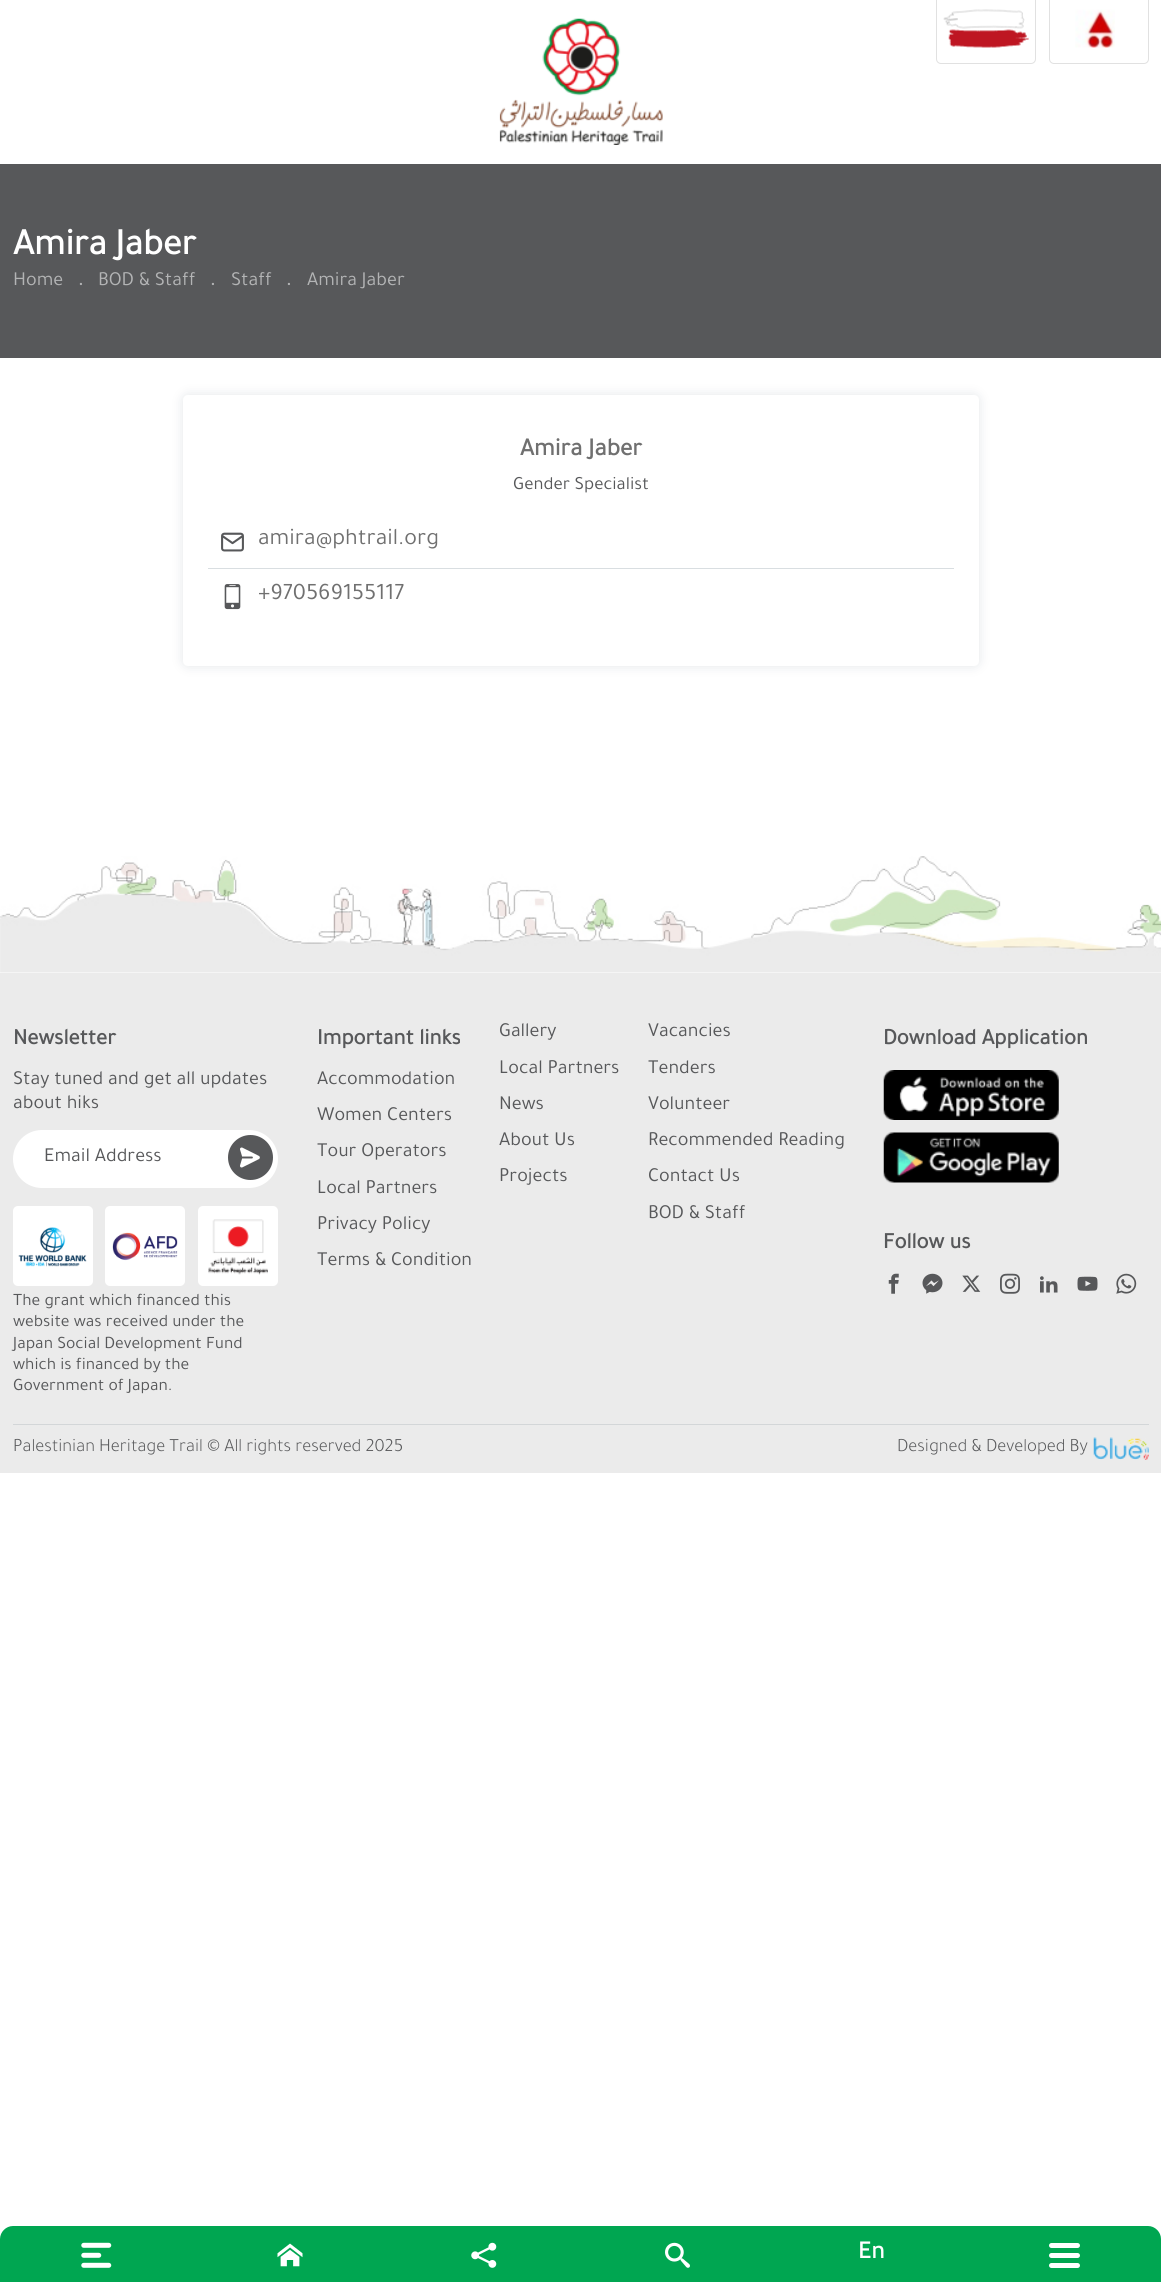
import math
import cairocffi as cairo

surface = cairo.ImageSurface(cairo.FORMAT_RGB24, 1161, 2282)
cr = cairo.Context(surface)
options = cairo.FontOptions()
options.set_hint_metrics(cairo.HINT_METRICS_OFF)
options.set_hint_style(cairo.HINT_STYLE_NONE)
cr.set_font_options(options)
cr.set_miter_limit(4)


def use_color(code):
    cr.set_source_rgb(*(v / 255 for v in bytes.fromhex(code[-6:])))


def round_rect(x, y, w, h, r):
    cr.new_sub_path()
    for i, (u, v) in enumerate([(x + w - r, y + h - r), (x + r, y + h - r), (x + r, y + r), (x + w - r, y + r)]):
        cr.arc(u, v, r, i * math.pi / 2, (i + 1) * math.pi / 2)
    cr.close_path()


def shadow(x, y, w, h, r, blur, alpha):
    cr.push_group_with_content(cairo.CONTENT_ALPHA)
    cr.set_operator(cairo.OPERATOR_SOURCE)
    for i in range(15, -16, -2):
        e = blur * i / 6
        if min(w, h) + 2 * e > 0:
            cr.set_source_rgba(0, 0, 0, alpha * math.erfc((i - 1) / 8.5) / 2)
            round_rect(x - e, y - e, w + 2 * e, h + 2 * e, max(0, min(r + e + blur * .6, min(w, h) / 2 + e)))
            cr.fill()
    cr.mask(cr.pop_group())


def picture(path, x, y, w, h):
    cr.save()
    cr.set_source_surface(cairo.ImageSurface.create_from_png(path), x, y)
    cr.rectangle(x, y, w, h)
    cr.fill()
    cr.restore()


use_color("#ffffff")
cr.paint()
picture("img1.png", 499, 18, 164, 127)
round_rect(936.5, -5.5, 99, 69, 4.5)
use_color("#e1e1e1")
cr.set_line_width(1)
cr.stroke()
picture("img2.png", 943, 9, 86, 39)
round_rect(1049.5, -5.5, 99, 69, 4.5)
cr.stroke()
picture("img3.png", 1075, 9, 40, 39)
use_color("#57585a")
cr.rectangle(0, 164, 1161, 194)
cr.fill()
cr.select_font_face("Tajawal", cairo.FONT_SLANT_NORMAL, cairo.FONT_WEIGHT_BOLD)
cr.set_font_size(37.5)
use_color("#ffffff")
cr.move_to(13, 254)
cr.show_text("Amira Jaber")
cr.select_font_face("Tajawal")
cr.set_font_size(20)
use_color("#b3b4b5")
cr.move_to(13, 285)
cr.show_text("Home")
cr.select_font_face("Tajawal", cairo.FONT_SLANT_NORMAL, cairo.FONT_WEIGHT_BOLD)
cr.move_to(78, 285)
cr.show_text(".")
cr.select_font_face("Tajawal")
cr.move_to(98, 285)
cr.show_text("BOD & Staff")
cr.select_font_face("Tajawal", cairo.FONT_SLANT_NORMAL, cairo.FONT_WEIGHT_BOLD)
cr.move_to(210, 285)
cr.show_text(".")
cr.select_font_face("Tajawal")
cr.move_to(231, 285)
cr.show_text("Staff")
cr.select_font_face("Tajawal", cairo.FONT_SLANT_NORMAL, cairo.FONT_WEIGHT_BOLD)
cr.move_to(286, 285)
cr.show_text(".")
cr.select_font_face("Tajawal")
cr.move_to(307, 285)
cr.show_text("Amira Jaber")
use_color("#546877")
shadow(183, 395, 796, 271, 5, 6, 0.16)
use_color("#ffffff")
round_rect(183, 395, 796, 271, 5)
cr.fill()
cr.select_font_face("Tajawal", cairo.FONT_SLANT_NORMAL, cairo.FONT_WEIGHT_BOLD)
cr.set_font_size(25)
use_color("#707070")
cr.move_to(520, 455)
cr.show_text("Amira Jaber")
cr.select_font_face("Tajawal")
cr.set_font_size(18.75)
use_color("#57585a")
cr.move_to(513, 489)
cr.show_text("Gender Specialist")
use_color("#d9dee1")
cr.rectangle(208, 568, 746, 1)
cr.fill()
picture("img4.png", 221, 532, 23, 20)
cr.set_font_size(23.75)
use_color("#707070")
cr.move_to(258, 544)
cr.show_text("amira@phtrail.org")
picture("img5.png", 224, 584, 17, 26)
cr.move_to(258, 599)
cr.show_text("+970569155117")
picture("img6.png", 0, 856, 1161, 117)
use_color("#ebebeb")
cr.rectangle(0, 973, 1161, 500)
cr.fill()
cr.select_font_face("Tajawal", cairo.FONT_SLANT_NORMAL, cairo.FONT_WEIGHT_BOLD)
cr.set_font_size(22.5)
use_color("#57585a")
cr.move_to(13, 1044)
cr.show_text("Newsletter")
cr.select_font_face("Tajawal")
cr.set_font_size(20)
cr.move_to(13, 1084)
cr.show_text("Stay tuned and get all updates")
cr.move_to(13, 1108)
cr.show_text("about hiks")
use_color("#ffffff")
round_rect(13, 1130, 265, 58, 29)
cr.fill()
use_color("#57585a")
cr.move_to(44, 1161)
cr.show_text("Email Address")
cr.new_path()
cr.arc(250.5, 1157.5, 21, 0, 2 * math.pi)
cr.fill_preserve()
cr.set_line_width(3)
cr.stroke()
picture("img7.png", 240, 1147, 20, 21)
use_color("#ffffff")
round_rect(13, 1206, 80, 80, 5)
cr.fill()
picture("img8.png", 18, 1227, 69, 40)
round_rect(105, 1206, 80, 80, 5)
cr.fill()
picture("img9.png", 112, 1232, 66, 29)
round_rect(198, 1206, 80, 80, 5)
cr.fill()
picture("img10.png", 208, 1219, 60, 56)
cr.set_font_size(17.5)
use_color("#57585a")
cr.move_to(13, 1305)
cr.show_text("The grant which financed this")
cr.move_to(13, 1326)
cr.show_text("website was received under the")
cr.move_to(13, 1348)
cr.show_text("Japan Social Development Fund")
cr.move_to(13, 1369)
cr.show_text("which is financed by the")
cr.move_to(13, 1390)
cr.show_text("Government of Japan.")
cr.select_font_face("Tajawal", cairo.FONT_SLANT_NORMAL, cairo.FONT_WEIGHT_BOLD)
cr.set_font_size(22.5)
cr.move_to(317, 1044)
cr.show_text("Important links")
cr.select_font_face("Tajawal")
cr.set_font_size(20)
cr.move_to(317, 1084)
cr.show_text("Accommodation")
cr.move_to(317, 1120)
cr.show_text("Women Centers")
cr.move_to(317, 1156)
cr.show_text("Tour Operators")
cr.move_to(317, 1193)
cr.show_text("Local Partners")
cr.move_to(317, 1229)
cr.show_text("Privacy Policy")
cr.move_to(317, 1265)
cr.show_text("Terms & Condition")
cr.move_to(499, 1036)
cr.show_text("Gallery")
cr.move_to(499, 1073)
cr.show_text("Local Partners")
cr.move_to(499, 1109)
cr.show_text("News")
cr.move_to(499, 1145)
cr.show_text("About Us")
cr.move_to(499, 1181)
cr.show_text("Projects")
cr.move_to(648, 1036)
cr.show_text("Vacancies")
cr.move_to(648, 1073)
cr.show_text("Tenders")
cr.move_to(648, 1109)
cr.show_text("Volunteer")
cr.move_to(648, 1145)
cr.show_text("Recommended Reading")
cr.move_to(648, 1181)
cr.show_text("Contact Us")
cr.move_to(648, 1218)
cr.show_text("BOD & Staff")
cr.select_font_face("Tajawal", cairo.FONT_SLANT_NORMAL, cairo.FONT_WEIGHT_BOLD)
cr.set_font_size(22.5)
cr.move_to(883, 1044)
cr.show_text("Download Application")
picture("img11.png", 883, 1070, 176, 50)
picture("img12.png", 883, 1132, 176, 51)
cr.move_to(883, 1248)
cr.show_text("Follow us")
picture("img13.png", 888, 1273, 11, 21)
picture("img14.png", 922, 1273, 21, 21)
picture("img15.png", 962, 1275, 19, 17)
picture("img16.png", 1000, 1273, 20, 21)
picture("img17.png", 1040, 1276, 18, 17)
picture("img18.png", 1077, 1276, 21, 15)
picture("img19.png", 1116, 1273, 21, 21)
use_color("#d3d6d8")
cr.rectangle(13, 1424, 1136, 1)
cr.fill()
cr.select_font_face("Tajawal Light")
cr.set_font_size(18.75)
use_color("#57585a")
cr.move_to(13, 1451)
cr.show_text("Palestinian Heritage Trail © All rights reserved 2025")
cr.move_to(897, 1451)
cr.show_text("Designed & Developed By")
picture("img20.png", 1093, 1437, 56, 23)
use_color("#00a651")
cr.new_path()
cr.move_to(13, 2226)
cr.line_to(1148, 2226)
cr.curve_to(1155, 2226, 1161, 2232, 1161, 2239)
cr.line_to(1161, 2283)
cr.line_to(0, 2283)
cr.line_to(0, 2239)
cr.curve_to(0, 2232, 6, 2226, 13, 2226)
cr.close_path()
cr.fill()
picture("img21.png", 81, 2242, 31, 26)
picture("img22.png", 277, 2243, 26, 24)
picture("img23.png", 471, 2242, 26, 26)
picture("img24.png", 665, 2242, 25, 26)
cr.select_font_face("Tajawal", cairo.FONT_SLANT_NORMAL, cairo.FONT_WEIGHT_BOLD)
cr.set_font_size(25)
use_color("#ffffff")
cr.move_to(858, 2258)
cr.show_text("En")
round_rect(1049, 2253, 31, 5, 2.5)
cr.fill()
round_rect(1049, 2243, 31, 5, 2.5)
cr.fill()
round_rect(1049, 2263, 31, 5, 2.5)
cr.fill()
surface.write_to_png("result.png")
